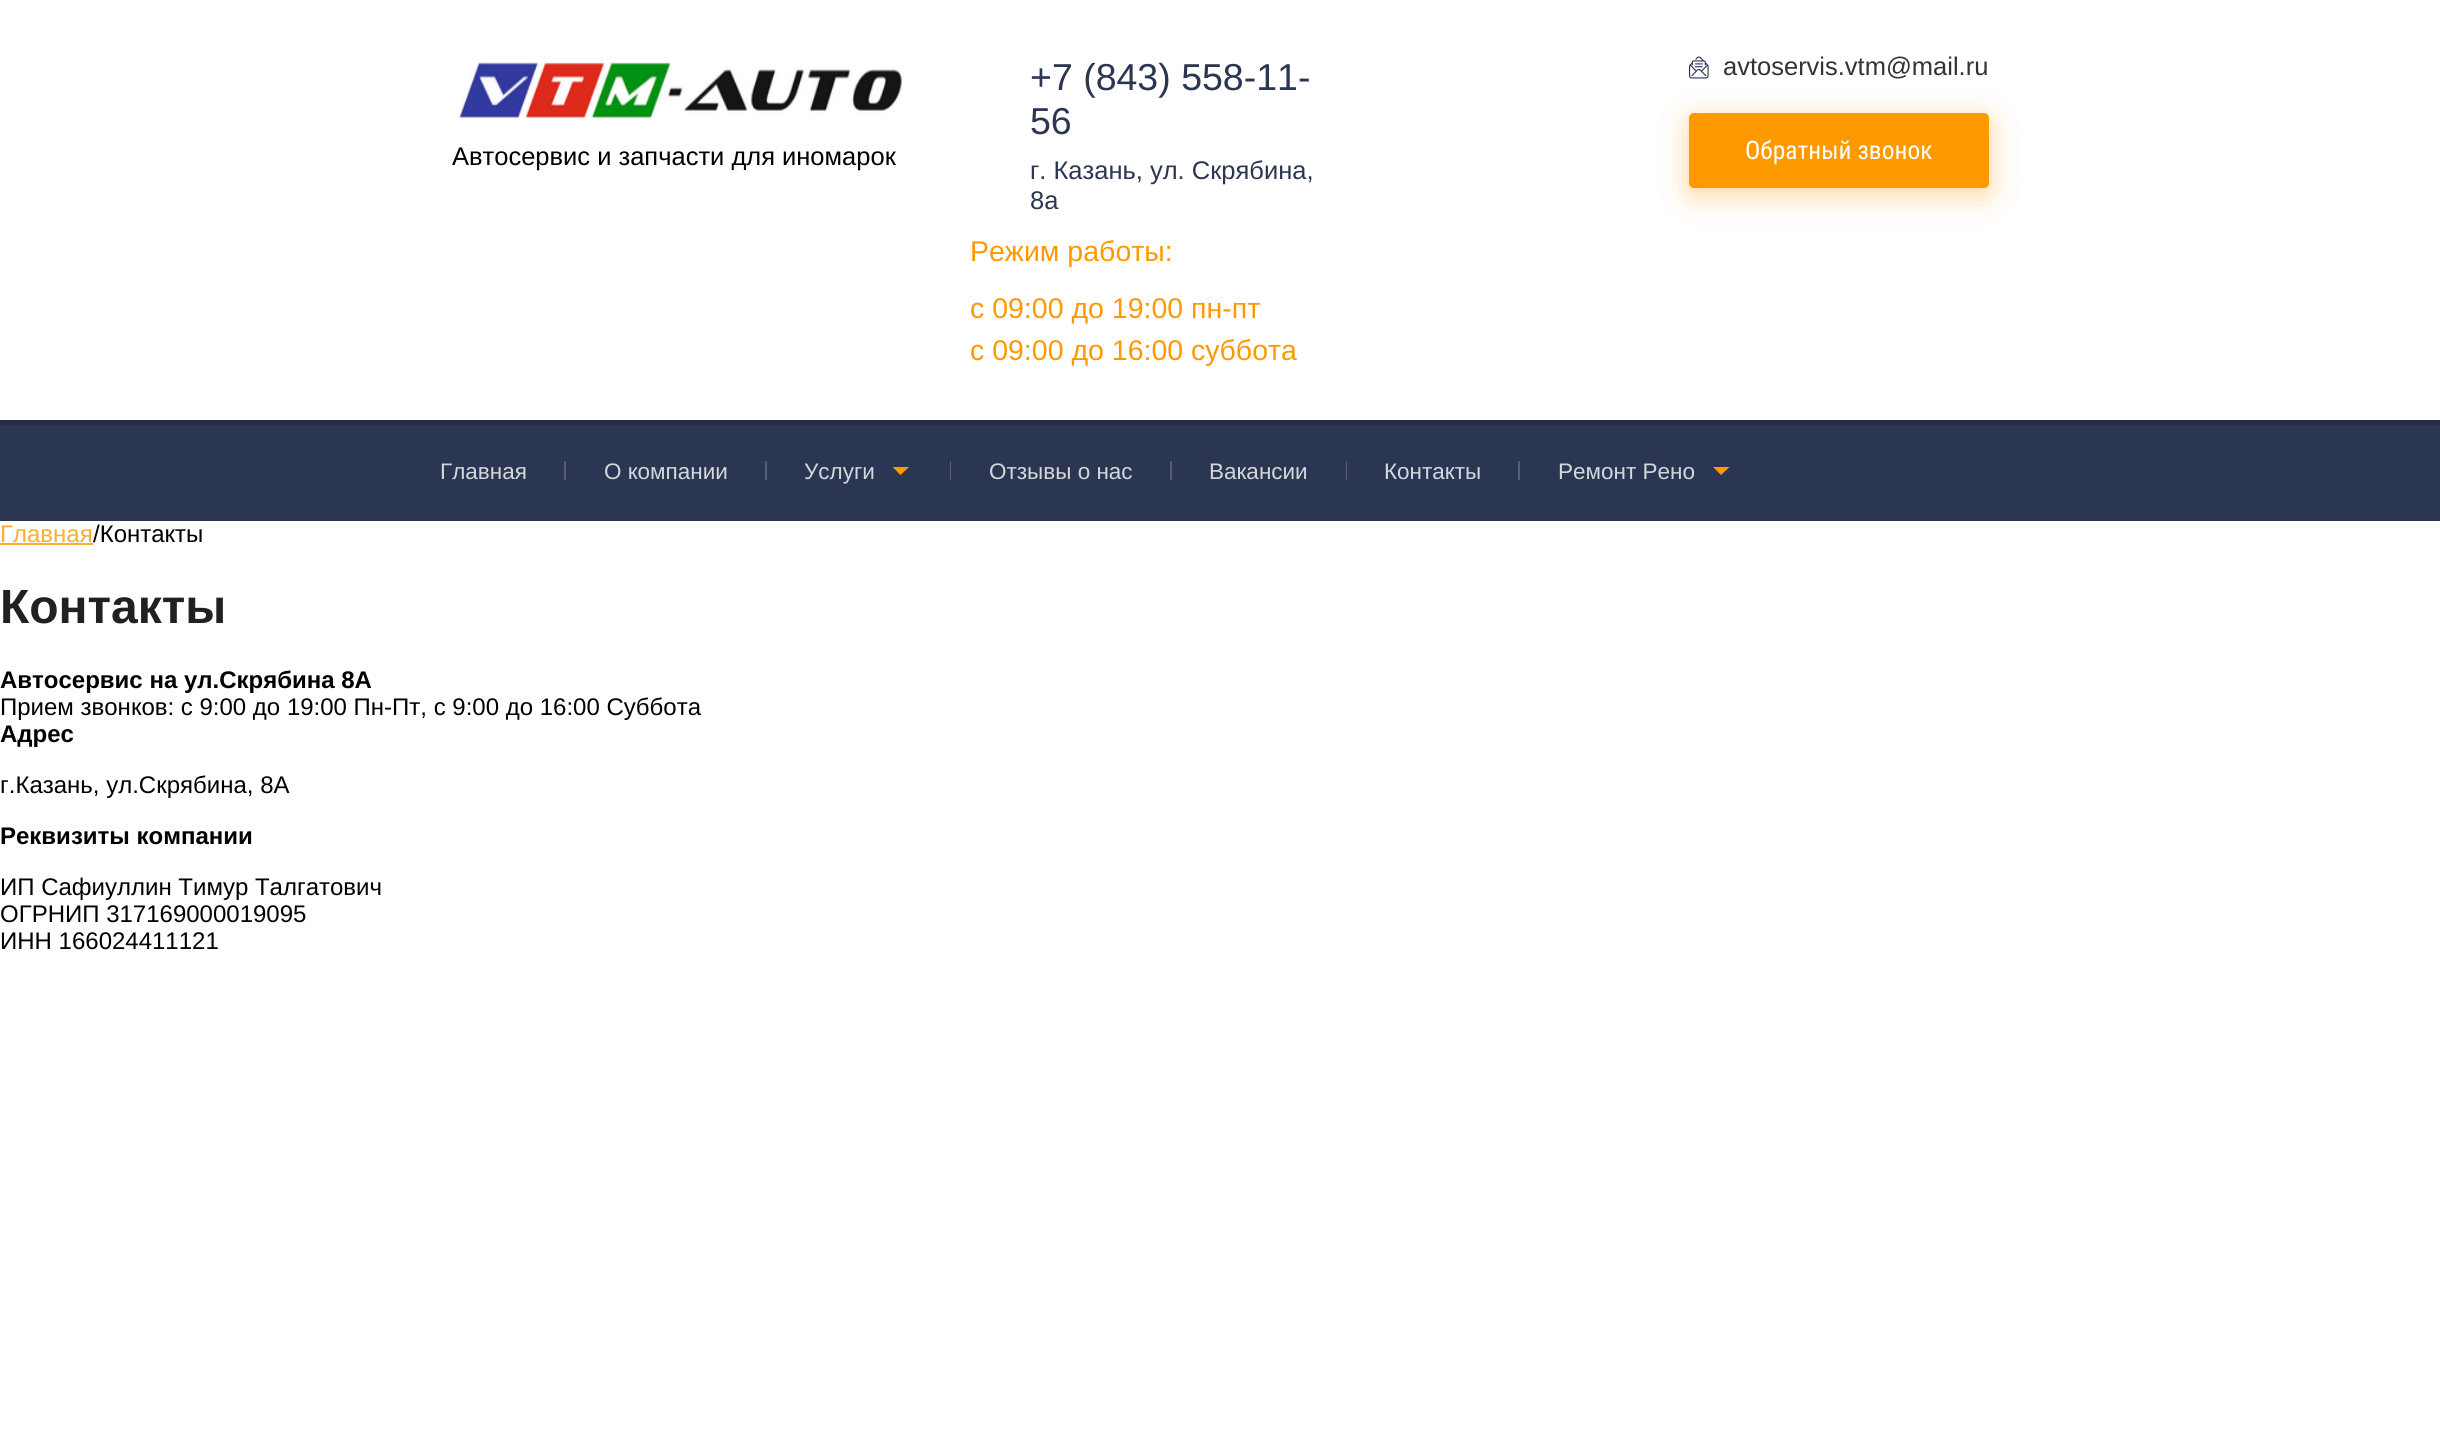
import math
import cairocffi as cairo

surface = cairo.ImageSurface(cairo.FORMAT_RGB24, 2440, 1454)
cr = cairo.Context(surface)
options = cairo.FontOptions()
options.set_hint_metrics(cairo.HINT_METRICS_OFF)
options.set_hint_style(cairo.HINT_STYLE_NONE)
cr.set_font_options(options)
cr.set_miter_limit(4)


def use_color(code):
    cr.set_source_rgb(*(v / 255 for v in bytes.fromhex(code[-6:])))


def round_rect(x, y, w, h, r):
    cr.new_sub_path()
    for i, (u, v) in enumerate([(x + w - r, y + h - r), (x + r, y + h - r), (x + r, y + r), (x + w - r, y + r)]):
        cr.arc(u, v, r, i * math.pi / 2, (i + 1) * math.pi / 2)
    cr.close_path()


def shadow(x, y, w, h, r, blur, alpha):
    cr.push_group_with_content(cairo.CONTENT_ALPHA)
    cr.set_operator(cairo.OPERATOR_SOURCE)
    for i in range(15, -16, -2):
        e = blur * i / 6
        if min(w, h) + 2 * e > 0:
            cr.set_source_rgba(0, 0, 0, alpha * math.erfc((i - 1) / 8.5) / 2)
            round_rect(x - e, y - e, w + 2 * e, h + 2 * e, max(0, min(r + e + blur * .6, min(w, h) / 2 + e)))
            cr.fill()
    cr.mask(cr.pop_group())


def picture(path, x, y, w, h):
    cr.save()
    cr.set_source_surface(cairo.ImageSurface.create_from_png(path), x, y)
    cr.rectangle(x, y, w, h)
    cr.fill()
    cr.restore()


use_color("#ffffff")
cr.paint()
picture("img1.png", 459, 62, 444, 56)
cr.select_font_face("Liberation Sans")
cr.set_font_size(25.5)
use_color("#000000")
cr.move_to(452, 165)
cr.show_text("Автосервис и запчасти для иномарок")
cr.set_font_size(37.5)
use_color("#2b3652")
cr.move_to(1030, 90)
cr.show_text("+7 (843) 558-11-")
cr.move_to(1030, 134)
cr.show_text("56")
cr.set_font_size(25.5)
cr.move_to(1030, 179)
cr.show_text("г. Казань, ул. Скрябина,")
cr.move_to(1030, 209)
cr.show_text("8а")
cr.set_font_size(28.5)
use_color("#ff9900")
cr.move_to(970, 261)
cr.show_text("Режим работы:")
cr.move_to(970, 318)
cr.show_text("с 09:00 до 19:00 пн-пт")
cr.move_to(970, 360)
cr.show_text("с 09:00 до 16:00 суббота")
picture("img2.png", 1689, 56, 20, 23)
cr.set_font_size(25.5)
use_color("#333333")
cr.move_to(1723, 75)
cr.show_text("avtoservis.vtm@mail.ru")
use_color("#ff9900")
shadow(1689, 120, 300, 75, 5, 15, 0.4)
use_color("#ff9900")
round_rect(1689, 113, 300, 75, 5)
cr.fill()
cr.select_font_face("Roboto Condensed")
use_color("#ffffff")
cr.move_to(1745, 159)
cr.show_text("Обратный звонок")
use_color("#2b3652")
cr.rectangle(0, 425, 2440, 96)
cr.fill()
use_color("#252e46")
cr.rectangle(0, 420, 2440, 5)
cr.fill()
use_color("#555e75")
cr.rectangle(564, 461, 2, 19)
cr.fill()
cr.select_font_face("Liberation Sans")
cr.set_font_size(22.5)
use_color("#d5d7dc")
cr.move_to(440, 479)
cr.show_text("Главная")
use_color("#555e75")
cr.rectangle(765, 461, 2, 19)
cr.fill()
use_color("#d5d7dc")
cr.move_to(604, 479)
cr.show_text("О компании")
use_color("#555e75")
cr.rectangle(950, 461, 1, 19)
cr.fill()
use_color("#d5d7dc")
cr.move_to(804, 479)
cr.show_text("Услуги")
use_color("#ff9900")
cr.set_fill_rule(cairo.FILL_RULE_EVEN_ODD)
cr.new_path()
cr.move_to(909, 467)
cr.line_to(900.5, 475)
cr.line_to(892.5, 467)
cr.close_path()
cr.fill()
use_color("#555e75")
cr.rectangle(1170, 461, 2, 19)
cr.fill()
use_color("#d5d7dc")
cr.move_to(989, 479)
cr.show_text("Отзывы о нас")
use_color("#555e75")
cr.rectangle(1346, 461, 1, 19)
cr.fill()
use_color("#d5d7dc")
cr.move_to(1209, 479)
cr.show_text("Вакансии")
use_color("#555e75")
cr.rectangle(1518, 461, 2, 19)
cr.fill()
use_color("#d5d7dc")
cr.move_to(1384, 479)
cr.show_text("Контакты")
cr.move_to(1558, 479)
cr.show_text("Ремонт Рено")
use_color("#ff9900")
cr.new_path()
cr.move_to(1729.5, 467)
cr.line_to(1721, 475)
cr.line_to(1713, 467)
cr.close_path()
cr.fill()
cr.set_font_size(24)
use_color("#ffac30")
cr.move_to(0, 542)
cr.show_text("Главная")
cr.rectangle(0, 543, 93, 2)
cr.fill()
use_color("#000000")
cr.move_to(93, 542)
cr.show_text("/Контакты")
cr.select_font_face("Liberation Sans", cairo.FONT_SLANT_NORMAL, cairo.FONT_WEIGHT_BOLD)
cr.set_font_size(48)
use_color("#212121")
cr.move_to(0, 623)
cr.show_text("Контакты")
cr.set_font_size(24)
use_color("#000000")
cr.move_to(0, 688)
cr.show_text("Автосервис на ул.Скрябина 8А")
cr.select_font_face("Liberation Sans")
cr.move_to(0, 715)
cr.show_text("Прием звонков: с 9:00 до 19:00 Пн-Пт, с 9:00 до 16:00 Суббота")
cr.select_font_face("Liberation Sans", cairo.FONT_SLANT_NORMAL, cairo.FONT_WEIGHT_BOLD)
cr.move_to(0, 742)
cr.show_text("Адрес")
cr.select_font_face("Liberation Sans")
cr.move_to(0, 793)
cr.show_text("г.Казань, ул.Скрябина, 8А")
cr.select_font_face("Liberation Sans", cairo.FONT_SLANT_NORMAL, cairo.FONT_WEIGHT_BOLD)
cr.move_to(0, 844)
cr.show_text("Реквизиты компании")
cr.select_font_face("Liberation Sans")
cr.move_to(0, 895)
cr.show_text("ИП Сафиуллин Тимур Талгатович")
cr.move_to(0, 922)
cr.show_text("ОГРНИП 317169000019095")
cr.move_to(0, 949)
cr.show_text("ИНН 166024411121")
surface.write_to_png("result.png")
